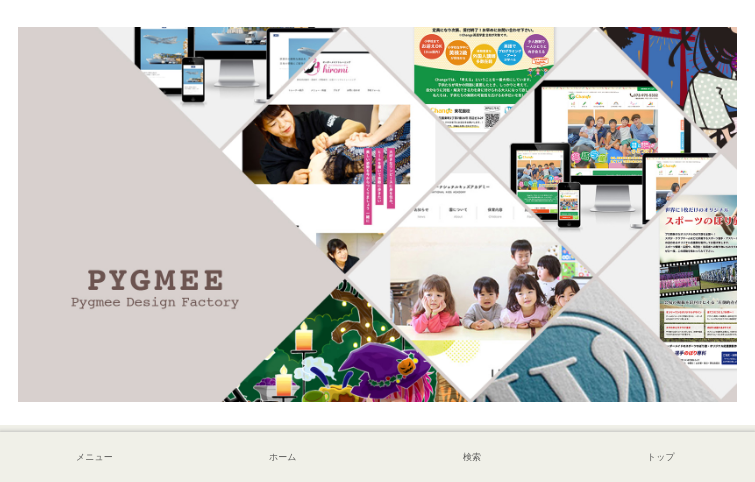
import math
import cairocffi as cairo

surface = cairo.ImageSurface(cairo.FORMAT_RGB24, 755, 482)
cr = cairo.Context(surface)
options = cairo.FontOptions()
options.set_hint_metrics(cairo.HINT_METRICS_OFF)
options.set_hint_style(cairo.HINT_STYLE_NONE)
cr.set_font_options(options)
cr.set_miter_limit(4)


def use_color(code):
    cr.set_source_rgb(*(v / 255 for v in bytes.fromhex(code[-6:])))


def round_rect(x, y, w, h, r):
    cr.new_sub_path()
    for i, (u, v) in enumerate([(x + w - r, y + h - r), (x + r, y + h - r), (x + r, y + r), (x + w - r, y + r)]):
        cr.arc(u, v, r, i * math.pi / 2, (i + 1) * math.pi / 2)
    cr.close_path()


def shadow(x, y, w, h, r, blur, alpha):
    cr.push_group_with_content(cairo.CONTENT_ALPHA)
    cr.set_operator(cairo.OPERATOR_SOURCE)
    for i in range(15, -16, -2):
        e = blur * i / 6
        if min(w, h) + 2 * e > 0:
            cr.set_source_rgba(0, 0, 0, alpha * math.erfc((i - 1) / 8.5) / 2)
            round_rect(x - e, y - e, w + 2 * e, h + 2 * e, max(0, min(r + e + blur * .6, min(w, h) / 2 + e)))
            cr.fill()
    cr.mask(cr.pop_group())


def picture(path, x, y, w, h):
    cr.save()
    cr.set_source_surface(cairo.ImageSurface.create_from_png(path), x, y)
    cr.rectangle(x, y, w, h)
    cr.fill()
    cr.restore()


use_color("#f0f0e8")
cr.paint()
use_color("#ffffff")
cr.rectangle(0, 0, 755, 425)
cr.fill()
picture("img1.png", 18, 27, 719, 375)
use_color("#a9a9a9")
shadow(0, 432, 755, 50, 0, 2.5, 1)
use_color("#f0f0e8")
cr.rectangle(0, 432, 755, 50)
cr.fill()
cr.select_font_face("WenQuanYi Zen Hei Medium")
cr.set_font_size(9)
use_color("#595957")
cr.move_to(76, 460)
cr.show_text("メニュー")
cr.move_to(269, 460)
cr.show_text("ホーム")
cr.move_to(463, 460)
cr.show_text("検索")
cr.move_to(647, 460)
cr.show_text("トップ")
surface.write_to_png("result.png")
